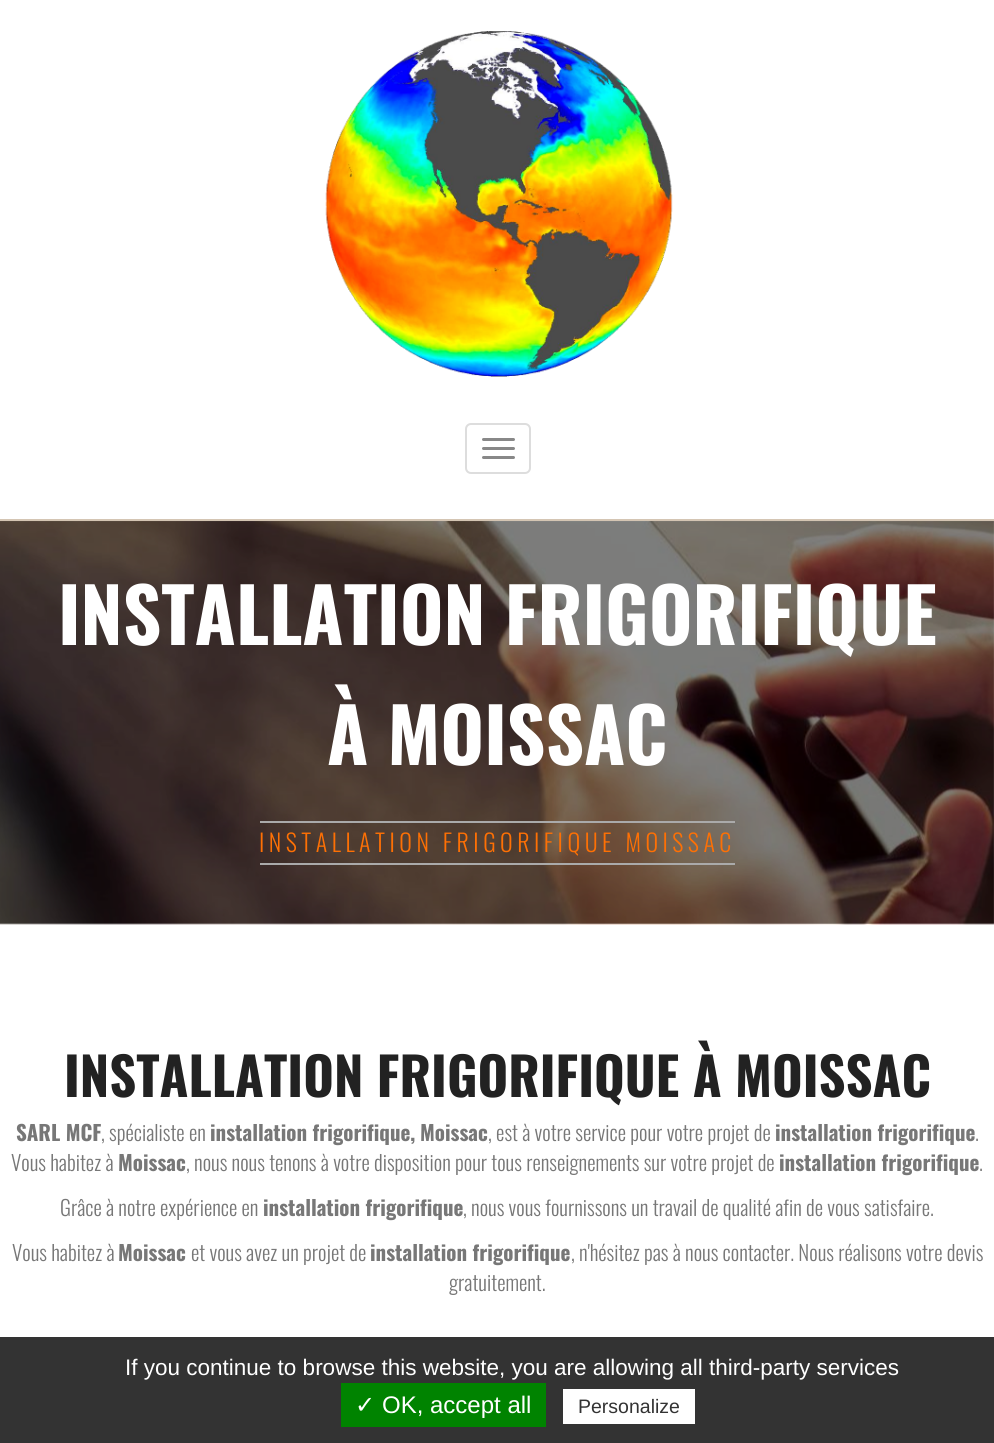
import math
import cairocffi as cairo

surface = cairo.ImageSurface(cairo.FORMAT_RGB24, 994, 1443)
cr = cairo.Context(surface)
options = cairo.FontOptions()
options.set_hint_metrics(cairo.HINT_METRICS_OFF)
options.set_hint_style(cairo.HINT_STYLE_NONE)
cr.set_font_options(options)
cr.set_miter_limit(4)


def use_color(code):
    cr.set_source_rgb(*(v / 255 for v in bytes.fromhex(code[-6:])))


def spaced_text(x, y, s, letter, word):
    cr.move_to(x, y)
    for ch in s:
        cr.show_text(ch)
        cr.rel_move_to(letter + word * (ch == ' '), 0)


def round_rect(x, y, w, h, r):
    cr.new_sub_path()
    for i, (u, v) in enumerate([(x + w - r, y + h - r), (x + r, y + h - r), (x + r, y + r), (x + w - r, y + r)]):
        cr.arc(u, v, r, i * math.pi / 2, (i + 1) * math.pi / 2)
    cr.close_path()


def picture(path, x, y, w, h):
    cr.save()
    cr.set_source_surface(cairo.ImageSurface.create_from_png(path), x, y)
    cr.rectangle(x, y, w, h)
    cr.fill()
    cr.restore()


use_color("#ffffff")
cr.paint()
use_color("#d4c5b3")
cr.rectangle(0, 519, 994, 2)
cr.fill()
picture("img1.png", 325, 31, 348, 346)
round_rect(466, 424, 64, 49, 5)
use_color("#dddddd")
cr.stroke()
use_color("#888888")
round_rect(482, 438, 33, 3, 1.5)
cr.fill()
round_rect(482, 447, 33, 3, 1.5)
cr.fill()
round_rect(482, 456, 33, 3, 1.5)
cr.fill()
picture("img2.png", 0, 521, 994, 404)
cr.select_font_face("Oswald", cairo.FONT_SLANT_NORMAL, cairo.FONT_WEIGHT_BOLD)
cr.set_font_size(75)
use_color("#ffffff")
cr.move_to(58, 645)
cr.show_text("INSTALLATION FRIGORIFIQUE")
cr.move_to(327, 765)
cr.show_text("À MOISSAC")
use_color("#aaaaaa")
cr.rectangle(260, 821, 475, 2)
cr.fill()
cr.rectangle(260, 863, 475, 2)
cr.fill()
cr.select_font_face("Oswald Light")
cr.set_font_size(24)
use_color("#fe7004")
spaced_text(259, 852, "INSTALLATION FRIGORIFIQUE MOISSAC", 4.5, 0)
cr.select_font_face("Oswald", cairo.FONT_SLANT_NORMAL, cairo.FONT_WEIGHT_BOLD)
cr.set_font_size(52.5)
use_color("#222222")
cr.move_to(64, 1097)
cr.show_text("INSTALLATION FRIGORIFIQUE À MOISSAC")
cr.set_font_size(21)
use_color("#777777")
cr.move_to(16, 1141)
cr.show_text("SARL MCF")
cr.select_font_face("Oswald Light")
cr.move_to(101, 1141)
cr.show_text(", spécialiste en")
cr.select_font_face("Oswald", cairo.FONT_SLANT_NORMAL, cairo.FONT_WEIGHT_BOLD)
cr.move_to(210, 1141)
cr.show_text("installation frigorifique,")
cr.move_to(420, 1141)
cr.show_text("Moissac")
cr.select_font_face("Oswald Light")
cr.move_to(488, 1141)
cr.show_text(", est à votre service pour votre projet de")
cr.select_font_face("Oswald", cairo.FONT_SLANT_NORMAL, cairo.FONT_WEIGHT_BOLD)
cr.move_to(775, 1141)
cr.show_text("installation frigorifique")
cr.select_font_face("Oswald Light")
cr.move_to(975, 1141)
cr.show_text(".")
cr.move_to(11, 1171)
cr.show_text("Vous habitez à")
cr.select_font_face("Oswald", cairo.FONT_SLANT_NORMAL, cairo.FONT_WEIGHT_BOLD)
cr.move_to(118, 1171)
cr.show_text("Moissac")
cr.select_font_face("Oswald Light")
cr.move_to(186, 1171)
cr.show_text(", nous nous tenons à votre disposition pour tous renseignements sur votre projet de")
cr.select_font_face("Oswald", cairo.FONT_SLANT_NORMAL, cairo.FONT_WEIGHT_BOLD)
cr.move_to(779, 1171)
cr.show_text("installation frigorifique")
cr.select_font_face("Oswald Light")
cr.move_to(979, 1171)
cr.show_text(".")
cr.move_to(60, 1216)
cr.show_text("Grâce à notre expérience en")
cr.select_font_face("Oswald", cairo.FONT_SLANT_NORMAL, cairo.FONT_WEIGHT_BOLD)
cr.move_to(263, 1216)
cr.show_text("installation frigorifique")
cr.select_font_face("Oswald Light")
cr.move_to(463, 1216)
cr.show_text(", nous vous fournissons un travail de qualité afin de vous satisfaire.")
cr.move_to(12, 1261)
cr.show_text("Vous habitez à")
cr.select_font_face("Oswald", cairo.FONT_SLANT_NORMAL, cairo.FONT_WEIGHT_BOLD)
cr.move_to(118, 1261)
cr.show_text("Moissac")
cr.select_font_face("Oswald Light")
cr.move_to(191, 1261)
cr.show_text("et vous avez un projet de")
cr.select_font_face("Oswald", cairo.FONT_SLANT_NORMAL, cairo.FONT_WEIGHT_BOLD)
cr.move_to(370, 1261)
cr.show_text("installation frigorifique")
cr.select_font_face("Oswald Light")
cr.move_to(571, 1261)
cr.show_text(", n'hésitez pas à nous contacter. Nous réalisons votre devis")
cr.move_to(449, 1291)
cr.show_text("gratuitement.")
use_color("#333333")
cr.rectangle(0, 1337, 994, 106)
cr.fill()
cr.select_font_face("Liberation Sans")
cr.set_font_size(22.5)
use_color("#ffffff")
cr.move_to(125, 1375)
cr.show_text("If you continue to browse this website, you are allowing all third-party services")
use_color("#008300")
cr.rectangle(341, 1383, 205, 44)
cr.fill()
cr.select_font_face("DejaVu Sans")
cr.set_font_size(24)
use_color("#ffffff")
cr.move_to(355, 1413)
cr.show_text("✓")
cr.select_font_face("Liberation Sans")
cr.move_to(382, 1413)
cr.show_text("OK, accept all")
cr.rectangle(563, 1389, 132, 35)
cr.fill()
cr.set_font_size(19.5)
use_color("#333333")
cr.move_to(578, 1413)
cr.show_text("Personalize")
surface.write_to_png("result.png")
